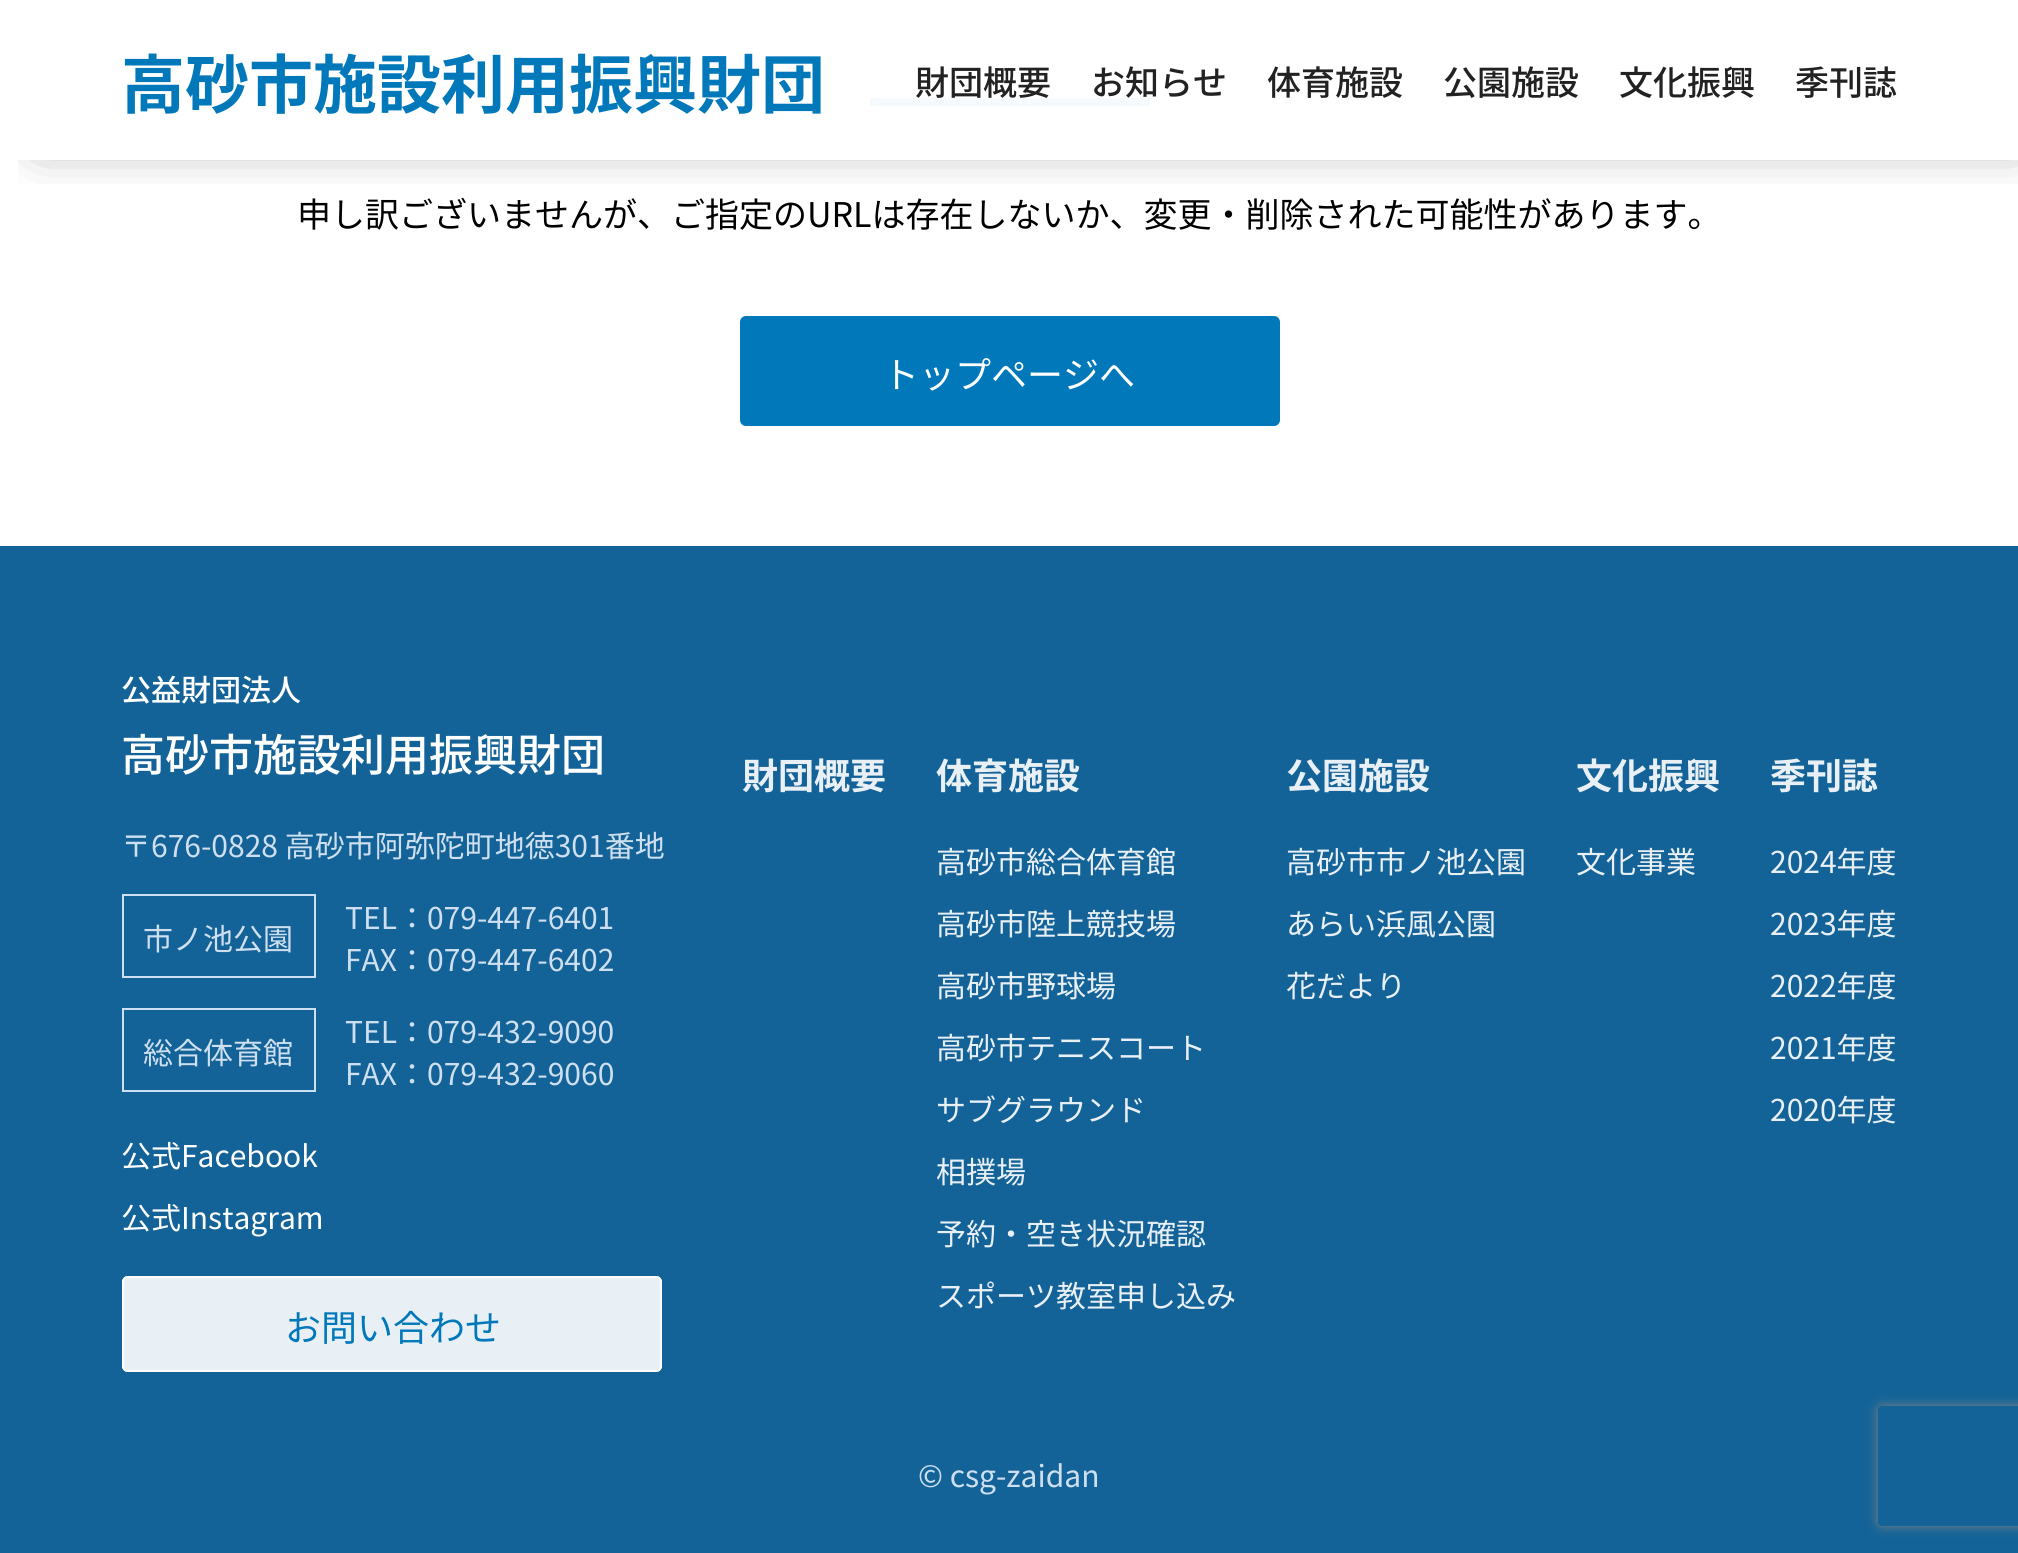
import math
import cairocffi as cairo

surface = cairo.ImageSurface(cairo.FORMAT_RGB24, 2018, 1553)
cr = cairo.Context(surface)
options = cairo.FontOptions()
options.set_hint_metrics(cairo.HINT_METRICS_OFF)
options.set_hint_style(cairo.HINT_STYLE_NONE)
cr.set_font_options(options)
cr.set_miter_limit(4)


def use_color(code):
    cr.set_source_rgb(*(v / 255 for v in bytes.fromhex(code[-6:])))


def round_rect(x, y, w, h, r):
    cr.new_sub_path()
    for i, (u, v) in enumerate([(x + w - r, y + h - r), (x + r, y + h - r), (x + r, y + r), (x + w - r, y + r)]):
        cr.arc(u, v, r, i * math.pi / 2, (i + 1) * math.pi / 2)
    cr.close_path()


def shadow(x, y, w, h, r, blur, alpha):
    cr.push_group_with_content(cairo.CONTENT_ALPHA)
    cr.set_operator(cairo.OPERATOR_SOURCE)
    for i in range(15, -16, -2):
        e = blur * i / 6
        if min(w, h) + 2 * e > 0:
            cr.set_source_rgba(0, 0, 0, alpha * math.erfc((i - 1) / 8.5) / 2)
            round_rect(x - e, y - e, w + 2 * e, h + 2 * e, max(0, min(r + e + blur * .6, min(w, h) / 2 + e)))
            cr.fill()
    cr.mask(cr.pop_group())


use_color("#ffffff")
cr.paint()
use_color("#f5fafc")
cr.rectangle(870, 98, 280, 8)
cr.fill()
cr.save()
cr.rectangle(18, 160, 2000, 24)
cr.clip()
use_color("#000000")
shadow(40, 20, 1978, 120, 0, 25, 0.5)
cr.restore()
cr.select_font_face("Noto Sans JP", cairo.FONT_SLANT_NORMAL, cairo.FONT_WEIGHT_BOLD)
cr.set_font_size(64)
use_color("#0078ba")
cr.move_to(121, 108)
cr.show_text("高砂市施設利用振興財団")
cr.select_font_face("Noto Sans JP Medium")
cr.set_font_size(34)
use_color("#222222")
cr.move_to(915, 95)
cr.show_text("財団概要")
cr.move_to(1091, 95)
cr.show_text("お知らせ")
cr.move_to(1267, 95)
cr.show_text("体育施設")
cr.move_to(1443, 95)
cr.show_text("公園施設")
cr.move_to(1619, 95)
cr.show_text("文化振興")
cr.move_to(1795, 95)
cr.show_text("季刊誌")
cr.select_font_face("Noto Sans JP")
use_color("#000000")
cr.move_to(297, 227)
cr.show_text("申し訳ございませんが、ご指定のURLは存在しないか、変更・削除された可能性があります。")
use_color("#0078ba")
round_rect(741, 317, 538, 108, 5)
cr.fill_preserve()
cr.stroke()
cr.set_font_size(36)
use_color("#ffffff")
cr.move_to(883, 388)
cr.show_text("トップページへ")
use_color("#146398")
cr.rectangle(0, 546, 2018, 1007)
cr.fill()
cr.select_font_face("Noto Sans JP Medium")
cr.set_font_size(30)
use_color("#ffffff")
cr.move_to(121, 701)
cr.show_text("公益財団法人")
cr.set_font_size(44)
cr.move_to(121, 771)
cr.show_text("高砂市施設利用振興財団")
cr.select_font_face("Noto Sans JP")
cr.set_font_size(30)
use_color("#cedfef")
cr.move_to(121, 857)
cr.show_text("〒676-0828 高砂市阿弥陀町地徳301番地")
cr.rectangle(123, 895, 192, 82)
cr.stroke()
cr.move_to(143, 950)
cr.show_text("市ノ池公園")
cr.move_to(345, 929)
cr.show_text("TEL：079-447-6401")
cr.move_to(345, 971)
cr.show_text("FAX：079-447-6402")
cr.rectangle(123, 1009, 192, 82)
cr.stroke()
cr.move_to(143, 1064)
cr.show_text("総合体育館")
cr.move_to(345, 1043)
cr.show_text("TEL：079-432-9090")
cr.move_to(345, 1085)
cr.show_text("FAX：079-432-9060")
use_color("#ffffff")
cr.move_to(121, 1167)
cr.show_text("公式Facebook")
cr.move_to(121, 1229)
cr.show_text("公式Instagram")
use_color("#e8eff5")
round_rect(122, 1276, 540, 96, 6)
cr.fill()
round_rect(123, 1277, 538, 94, 5)
cr.set_source_rgba(1, 1, 1, 0.9)
cr.stroke()
cr.set_font_size(36)
use_color("#0078ba")
cr.move_to(285, 1341)
cr.show_text("お問い合わせ")
cr.select_font_face("Noto Sans JP", cairo.FONT_SLANT_NORMAL, cairo.FONT_WEIGHT_BOLD)
use_color("#e8eff5")
cr.move_to(742, 789)
cr.show_text("財団概要")
cr.move_to(936, 789)
cr.show_text("体育施設")
cr.select_font_face("Noto Sans JP")
cr.set_font_size(30)
cr.move_to(936, 873)
cr.show_text("高砂市総合体育館")
cr.move_to(936, 935)
cr.show_text("高砂市陸上競技場")
cr.move_to(936, 997)
cr.show_text("高砂市野球場")
cr.move_to(936, 1059)
cr.show_text("高砂市テニスコート")
cr.move_to(936, 1121)
cr.show_text("サブグラウンド")
cr.move_to(936, 1183)
cr.show_text("相撲場")
cr.move_to(936, 1245)
cr.show_text("予約・空き状況確認")
cr.move_to(936, 1307)
cr.show_text("スポーツ教室申し込み")
cr.select_font_face("Noto Sans JP", cairo.FONT_SLANT_NORMAL, cairo.FONT_WEIGHT_BOLD)
cr.set_font_size(36)
cr.move_to(1286, 789)
cr.show_text("公園施設")
cr.select_font_face("Noto Sans JP")
cr.set_font_size(30)
cr.move_to(1286, 873)
cr.show_text("高砂市市ノ池公園")
cr.move_to(1286, 935)
cr.show_text("あらい浜風公園")
cr.move_to(1286, 997)
cr.show_text("花だより")
cr.select_font_face("Noto Sans JP", cairo.FONT_SLANT_NORMAL, cairo.FONT_WEIGHT_BOLD)
cr.set_font_size(36)
cr.move_to(1576, 789)
cr.show_text("文化振興")
cr.select_font_face("Noto Sans JP")
cr.set_font_size(30)
cr.move_to(1576, 873)
cr.show_text("文化事業")
cr.select_font_face("Noto Sans JP", cairo.FONT_SLANT_NORMAL, cairo.FONT_WEIGHT_BOLD)
cr.set_font_size(36)
cr.move_to(1770, 789)
cr.show_text("季刊誌")
cr.select_font_face("Noto Sans JP")
cr.set_font_size(30)
cr.move_to(1770, 873)
cr.show_text("2024年度")
cr.move_to(1770, 935)
cr.show_text("2023年度")
cr.move_to(1770, 997)
cr.show_text("2022年度")
cr.move_to(1770, 1059)
cr.show_text("2021年度")
cr.move_to(1770, 1121)
cr.show_text("2020年度")
use_color("#cedfef")
cr.move_to(918, 1487)
cr.show_text("© csg-zaidan")
cr.save()
cr.set_fill_rule(cairo.FILL_RULE_EVEN_ODD)
cr.new_path()
cr.move_to(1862, 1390)
cr.line_to(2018, 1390)
cr.line_to(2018, 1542)
cr.line_to(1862, 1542)
cr.close_path()
cr.move_to(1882, 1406)
cr.line_to(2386, 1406)
cr.curve_to(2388, 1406, 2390, 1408, 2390, 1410)
cr.line_to(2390, 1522)
cr.curve_to(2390, 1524, 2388, 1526, 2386, 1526)
cr.line_to(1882, 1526)
cr.curve_to(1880, 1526, 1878, 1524, 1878, 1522)
cr.line_to(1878, 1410)
cr.curve_to(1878, 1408, 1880, 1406, 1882, 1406)
cr.close_path()
cr.clip()
use_color("#808080")
shadow(1878, 1406, 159, 120, 4, 5, 1)
cr.restore()
surface.write_to_png("result.png")
